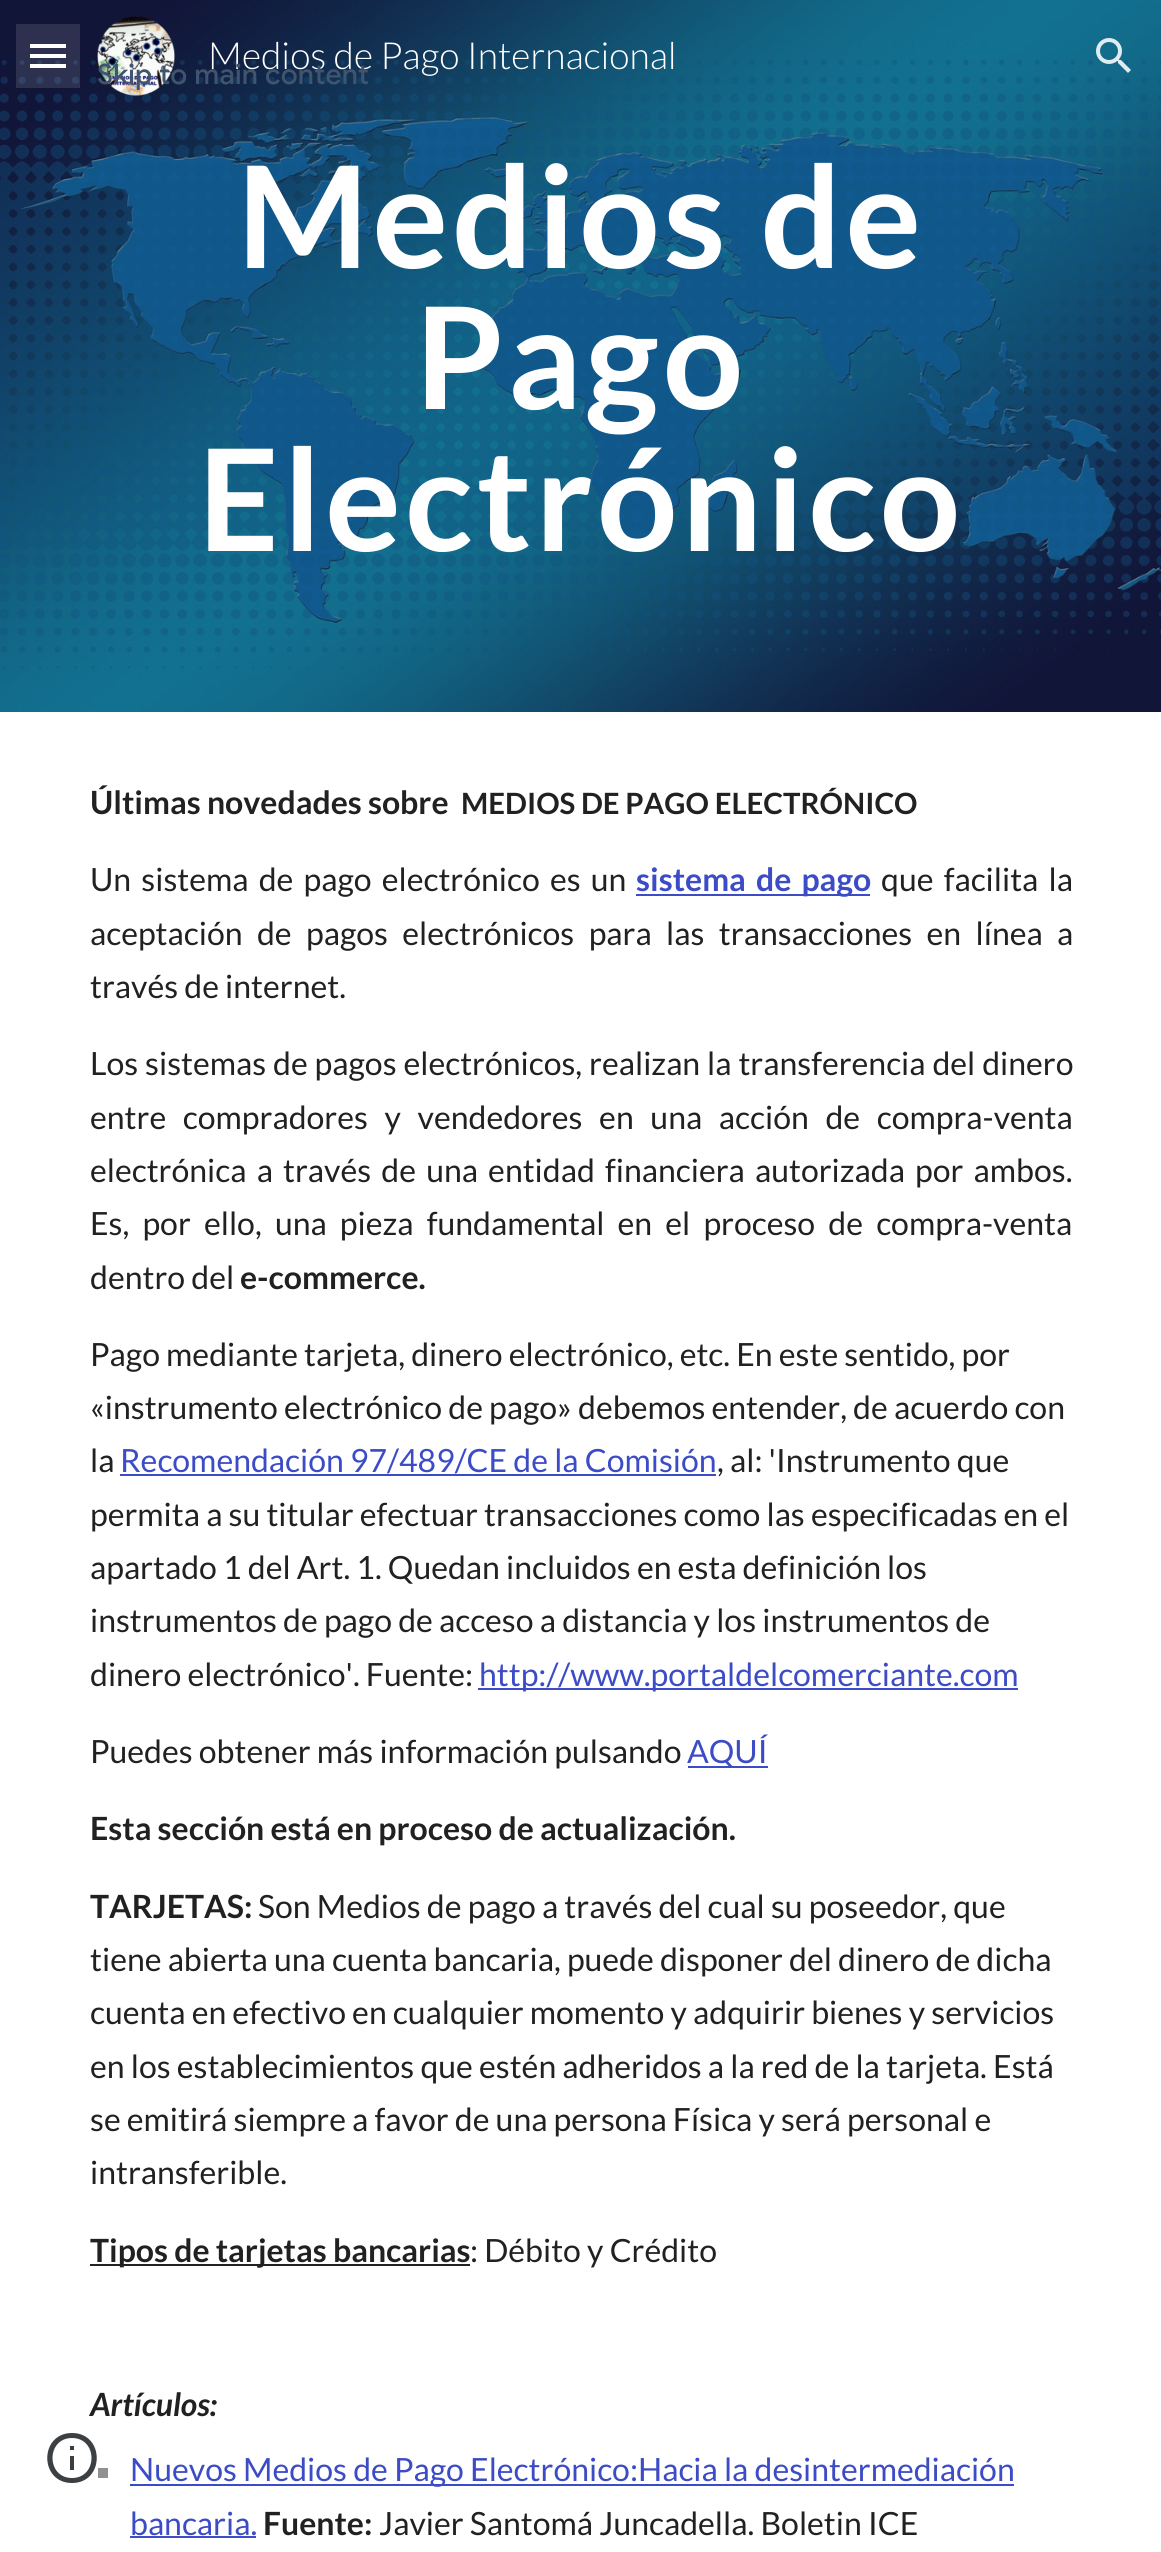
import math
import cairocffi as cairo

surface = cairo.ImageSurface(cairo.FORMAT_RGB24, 1161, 2552)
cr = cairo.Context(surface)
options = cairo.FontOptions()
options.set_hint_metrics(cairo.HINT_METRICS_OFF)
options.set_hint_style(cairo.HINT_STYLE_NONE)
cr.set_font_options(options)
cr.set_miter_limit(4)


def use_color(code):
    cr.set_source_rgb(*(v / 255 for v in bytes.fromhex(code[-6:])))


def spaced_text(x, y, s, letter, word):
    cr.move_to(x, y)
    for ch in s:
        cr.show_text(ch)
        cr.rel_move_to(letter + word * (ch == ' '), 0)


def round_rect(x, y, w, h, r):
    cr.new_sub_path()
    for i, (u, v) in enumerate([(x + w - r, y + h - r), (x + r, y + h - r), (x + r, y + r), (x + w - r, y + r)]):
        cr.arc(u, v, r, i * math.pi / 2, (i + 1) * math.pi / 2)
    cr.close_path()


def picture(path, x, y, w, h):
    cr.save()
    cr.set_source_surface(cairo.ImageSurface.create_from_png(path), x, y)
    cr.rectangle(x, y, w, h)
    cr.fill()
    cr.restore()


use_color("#ffffff")
cr.paint()
picture("img3.png", 0, 0, 1161, 712)
use_color("#ffffff")
cr.rectangle(30, 44, 36, 4)
cr.fill()
cr.rectangle(30, 54, 36, 4)
cr.fill()
cr.rectangle(30, 64, 36, 4)
cr.fill()
cr.set_source_rgba(1, 1, 1, 0.12)
cr.rectangle(16, 24, 64, 64)
cr.fill()
picture("img1.png", 97, 16, 78, 80)
cr.select_font_face("Lato Light")
cr.set_font_size(37.3)
use_color("#ffffff")
cr.move_to(208, 69)
cr.show_text("Medios de Pago Internacional")
picture("img2.png", 1096, 38, 35, 35)
use_color("#212121")
cr.rectangle(98, 2468, 10, 10)
cr.fill()
cr.set_source_rgba(1, 1, 1, 0.5)
round_rect(24, 2424, 96, 96, 34)
cr.fill()
use_color("#3c4043")
cr.new_path()
cr.move_to(70, 2470)
cr.line_to(74, 2470)
cr.line_to(74, 2456)
cr.line_to(70, 2456)
cr.close_path()
cr.move_to(72, 2433)
cr.curve_to(39, 2433, 39, 2483, 72, 2483)
cr.curve_to(105, 2483, 105, 2433, 72, 2433)
cr.close_path()
cr.move_to(72, 2478)
cr.curve_to(46, 2478, 46, 2438, 72, 2438)
cr.curve_to(98, 2438, 98, 2478, 72, 2478)
cr.close_path()
cr.move_to(70, 2450)
cr.line_to(74, 2450)
cr.line_to(74, 2446)
cr.line_to(70, 2446)
cr.close_path()
cr.fill()
cr.select_font_face("Lato", cairo.FONT_SLANT_NORMAL, cairo.FONT_WEIGHT_BOLD)
cr.set_font_size(141.5)
use_color("#ffffff")
spaced_text(237, 268, "Medios de", 4, 0)
spaced_text(415, 409, "Pago", 4, 0)
spaced_text(198, 551, "Electrónico", 4, 0)
cr.set_font_size(32)
use_color("#212121")
cr.move_to(90, 814)
cr.show_text("Últimas novedades sobre")
cr.set_font_size(29.3)
cr.move_to(461, 814)
cr.show_text("MEDIOS DE PAGO ELECTRÓNICO")
cr.select_font_face("Lato")
cr.set_font_size(32)
spaced_text(90, 891, "Un sistema de pago electrónico es un", 0, 4)
use_color("#3c4bc6")
cr.rectangle(636, 894, 234, 2)
cr.fill()
cr.select_font_face("Lato", cairo.FONT_SLANT_NORMAL, cairo.FONT_WEIGHT_BOLD)
spaced_text(636, 891, "sistema de pago", 0, 4)
cr.select_font_face("Lato")
use_color("#212121")
spaced_text(881, 891, "que facilita la", 0, 4)
spaced_text(90, 945, "aceptación de pagos electrónicos para las transacciones en línea a", 0, 8.25)
cr.move_to(90, 998)
cr.show_text("través de internet.")
spaced_text(90, 1075, "Los sistemas de pagos electrónicos, realizan la transferencia del dinero", 0, 0.75)
spaced_text(90, 1129, "entre compradores y vendedores en una acción de compra-venta", 0, 10.5)
spaced_text(90, 1182, "electrónica a través de una entidad financiera autorizada por ambos.", 0, 4)
spaced_text(90, 1235, "Es, por ello, una pieza fundamental en el proceso de compra-venta", 0, 7)
cr.move_to(90, 1289)
cr.show_text("dentro del")
cr.select_font_face("Lato", cairo.FONT_SLANT_NORMAL, cairo.FONT_WEIGHT_BOLD)
cr.move_to(240, 1289)
cr.show_text("e-commerce.")
cr.select_font_face("Lato")
cr.move_to(90, 1366)
cr.show_text("Pago mediante tarjeta, dinero electrónico, etc. En este sentido, por")
cr.move_to(90, 1419)
cr.show_text("«instrumento electrónico de pago» debemos entender, de acuerdo con")
cr.move_to(90, 1472)
cr.show_text("la")
use_color("#3c4bc6")
cr.move_to(120, 1472)
cr.show_text("Recomendación 97/489/CE de la Comisión")
cr.rectangle(120, 1474, 596, 2)
cr.fill()
use_color("#212121")
cr.move_to(717, 1472)
cr.show_text(", al: 'Instrumento que")
cr.move_to(90, 1526)
cr.show_text("permita a su titular efectuar transacciones como las especificadas en el")
cr.move_to(90, 1579)
cr.show_text("apartado 1 del Art. 1. Quedan incluidos en esta definición los")
cr.move_to(90, 1632)
cr.show_text("instrumentos de pago de acceso a distancia y los instrumentos de")
cr.move_to(90, 1686)
cr.show_text("dinero electrónico'. Fuente:")
use_color("#3c4bc6")
cr.rectangle(478, 1688, 540, 2)
cr.fill()
cr.move_to(479, 1686)
cr.show_text("http://www.portaldelcomerciante.com")
use_color("#212121")
cr.move_to(90, 1763)
cr.show_text("Puedes obtener más información pulsando")
use_color("#3c4bc6")
cr.rectangle(688, 1766, 80, 2)
cr.fill()
cr.move_to(687, 1763)
cr.show_text("AQUÍ")
cr.select_font_face("Lato", cairo.FONT_SLANT_NORMAL, cairo.FONT_WEIGHT_BOLD)
use_color("#212121")
cr.move_to(90, 1840)
cr.show_text("Esta sección está en proceso de actualización.")
cr.move_to(90, 1918)
cr.show_text("TARJETAS:")
cr.select_font_face("Lato")
cr.move_to(258, 1918)
cr.show_text("Son Medios de pago a través del cual su poseedor, que")
cr.move_to(90, 1971)
cr.show_text("tiene abierta una cuenta bancaria, puede disponer del dinero de dicha")
cr.move_to(90, 2024)
cr.show_text("cuenta en efectivo en cualquier momento y adquirir bienes y servicios")
cr.move_to(90, 2078)
cr.show_text("en los establecimientos que estén adheridos a la red de la tarjeta. Está")
cr.move_to(90, 2131)
cr.show_text("se emitirá siempre a favor de una persona Física y será personal e")
cr.move_to(90, 2184)
cr.show_text("intransferible.")
cr.rectangle(90, 2264, 380, 2)
cr.fill()
cr.select_font_face("Lato", cairo.FONT_SLANT_NORMAL, cairo.FONT_WEIGHT_BOLD)
cr.move_to(90, 2262)
cr.show_text("Tipos de tarjetas bancarias")
cr.select_font_face("Lato")
cr.move_to(470, 2262)
cr.show_text(": Débito y Crédito")
cr.select_font_face("Lato", cairo.FONT_SLANT_ITALIC, cairo.FONT_WEIGHT_BOLD)
cr.move_to(90, 2416)
cr.show_text("Artículos:")
use_color("#3c4bc6")
cr.rectangle(130, 2484, 884, 2)
cr.fill()
cr.select_font_face("Lato")
cr.move_to(130, 2481)
cr.show_text("Nuevos Medios de Pago Electrónico:Hacia la desintermediación")
cr.move_to(130, 2535)
cr.show_text("bancaria.")
cr.rectangle(130, 2536, 126, 2)
cr.fill()
cr.select_font_face("Lato", cairo.FONT_SLANT_NORMAL, cairo.FONT_WEIGHT_BOLD)
use_color("#212121")
cr.move_to(263, 2535)
cr.show_text("Fuente:")
cr.select_font_face("Lato")
cr.move_to(379, 2535)
cr.show_text("Javier Santomá Juncadella. Boletin ICE")
cr.select_font_face("Google Sans Medium")
cr.set_font_size(28)
use_color("#41546e")
spaced_text(97, 84, "Skip to main content", 0.25, 0)
surface.write_to_png("result.png")
